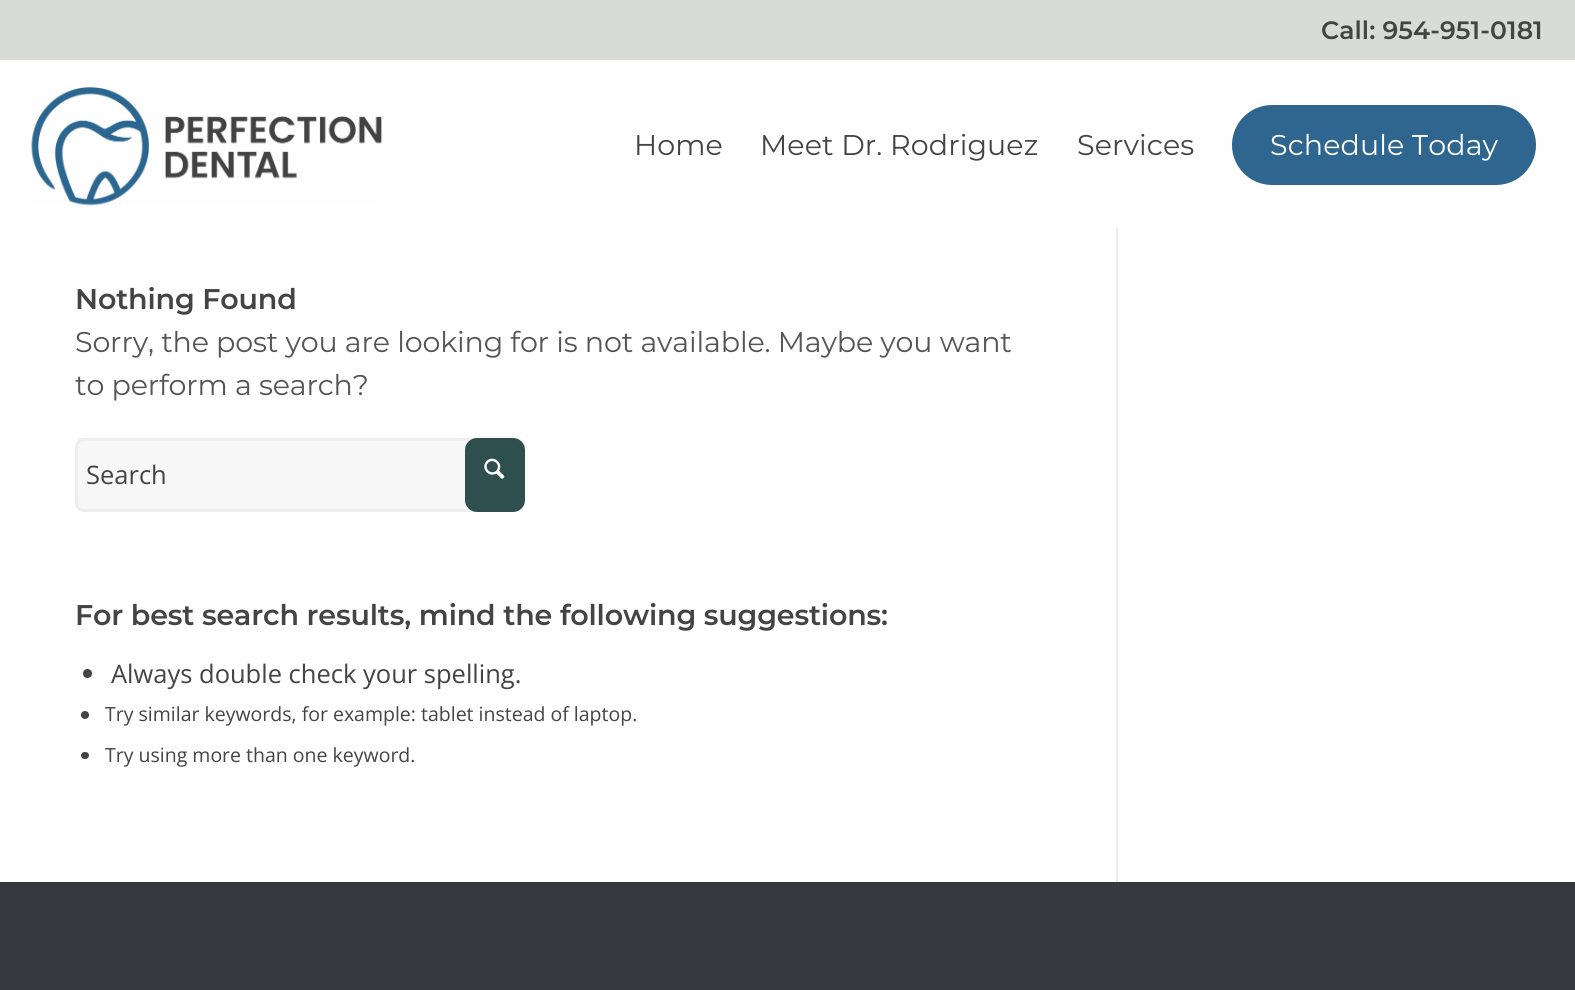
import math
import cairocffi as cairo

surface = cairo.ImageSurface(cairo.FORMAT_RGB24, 1575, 990)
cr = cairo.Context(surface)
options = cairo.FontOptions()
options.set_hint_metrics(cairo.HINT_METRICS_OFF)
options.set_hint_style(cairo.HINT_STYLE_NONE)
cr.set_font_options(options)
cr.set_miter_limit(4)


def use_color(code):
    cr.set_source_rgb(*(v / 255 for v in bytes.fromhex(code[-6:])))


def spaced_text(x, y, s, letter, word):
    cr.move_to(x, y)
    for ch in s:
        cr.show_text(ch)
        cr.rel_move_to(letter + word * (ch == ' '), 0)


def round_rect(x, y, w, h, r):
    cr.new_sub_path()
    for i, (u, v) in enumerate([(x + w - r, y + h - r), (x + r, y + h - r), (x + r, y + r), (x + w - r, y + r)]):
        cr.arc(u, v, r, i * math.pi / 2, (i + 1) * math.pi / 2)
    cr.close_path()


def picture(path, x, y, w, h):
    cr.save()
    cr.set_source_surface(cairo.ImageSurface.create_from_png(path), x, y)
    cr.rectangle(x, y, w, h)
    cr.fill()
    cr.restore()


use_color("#ffffff")
cr.paint()
use_color("#d9dcd6")
cr.rectangle(0, 0, 1575, 60)
cr.fill()
cr.select_font_face("Montserrat SemiBold")
cr.set_font_size(25.1)
use_color("#444444")
spaced_text(1321, 39, "Call: 954-951-0181", 0.1, 0)
picture("img1.png", 31, 87, 352, 119)
cr.select_font_face("Montserrat")
cr.set_font_size(28.5)
spaced_text(634, 155, "Home", 0.1, 0)
spaced_text(760, 155, "Meet Dr. Rodriguez", 0.1, 0)
spaced_text(1077, 155, "Services", 0.1, 0)
use_color("#2f6690")
round_rect(1232, 105, 304, 80, 40)
cr.fill()
use_color("#ffffff")
spaced_text(1270, 155, "Schedule Today", 0.1, 0)
use_color("#ebebeb")
cr.rectangle(1116, 228, 2, 654)
cr.fill()
cr.select_font_face("Montserrat SemiBold")
use_color("#444444")
spaced_text(75, 309, "Nothing Found", -0.15, 0)
cr.select_font_face("Montserrat")
use_color("#555555")
spaced_text(75, 352, "Sorry, the post you are looking for is not available. Maybe you want", -0.15, 0)
spaced_text(75, 395, "to perform a search?", -0.15, 0)
use_color("#f7f7f7")
round_rect(76.5, 439.5, 447, 71, 7.5)
cr.fill_preserve()
use_color("#eeeeee")
cr.set_line_width(3)
cr.stroke()
use_color("#2f4f4f")
round_rect(465, 438, 60, 74, 12)
cr.fill()
cr.select_font_face("Open Sans")
cr.set_font_size(25.5)
use_color("#444444")
cr.move_to(86, 484)
cr.show_text("Search")
picture("img2.png", 484, 458, 21, 21)
cr.select_font_face("Montserrat SemiBold")
cr.set_font_size(28.5)
spaced_text(75, 625, "For best search results, mind the following suggestions:", -0.15, 0)
cr.new_path()
cr.arc(87.5, 673.5, 4.5, 0, 2 * math.pi)
cr.fill()
cr.select_font_face("Open Sans")
cr.set_font_size(25.5)
cr.move_to(111, 683)
cr.show_text("Always double check your spelling.")
cr.new_path()
cr.arc(85, 715, 4, 0, 2 * math.pi)
cr.fill()
cr.set_font_size(19.5)
cr.move_to(105, 721)
cr.show_text("Try similar keywords, for example: tablet instead of laptop.")
round_rect(81, 752, 8, 7, 3.5)
cr.fill()
cr.move_to(105, 762)
cr.show_text("Try using more than one keyword.")
use_color("#35383c")
cr.rectangle(0, 882, 1575, 108)
cr.fill()
surface.write_to_png("result.png")
